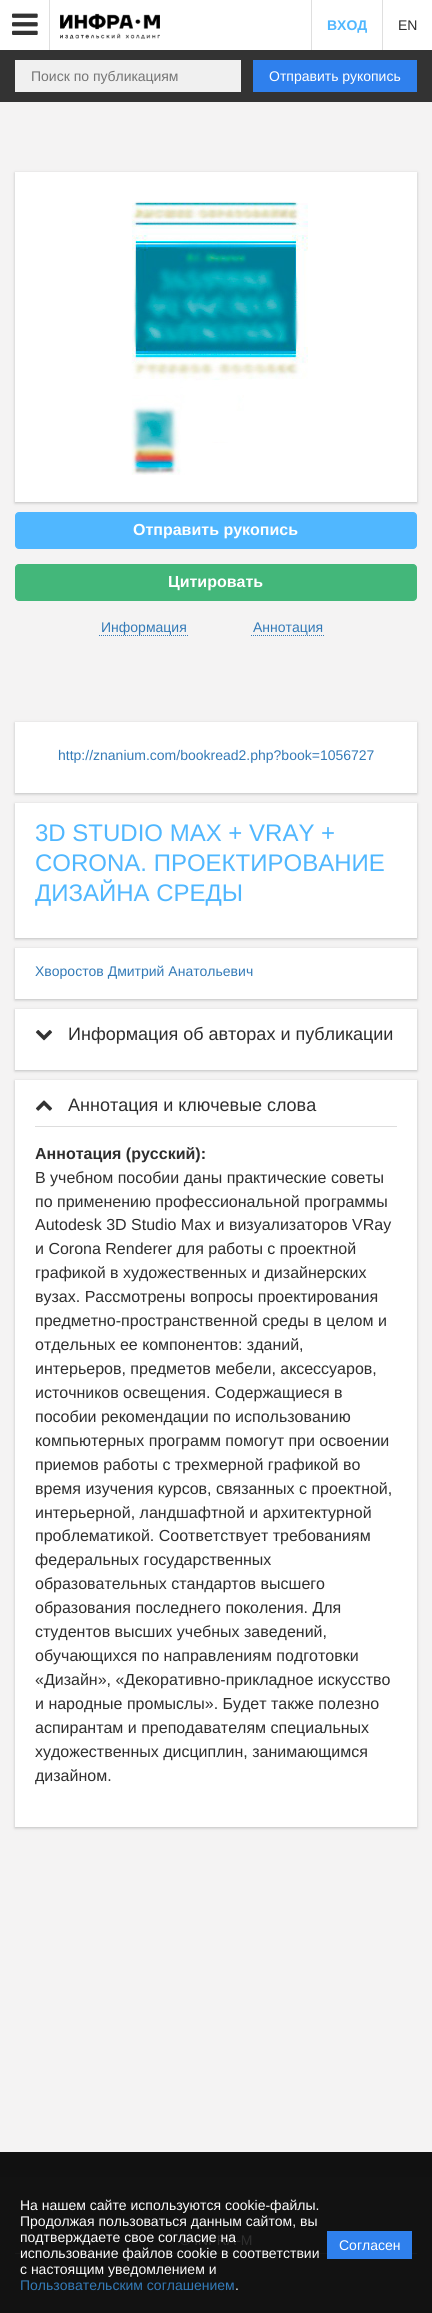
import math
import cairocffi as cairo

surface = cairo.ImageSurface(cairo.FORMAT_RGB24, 432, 2313)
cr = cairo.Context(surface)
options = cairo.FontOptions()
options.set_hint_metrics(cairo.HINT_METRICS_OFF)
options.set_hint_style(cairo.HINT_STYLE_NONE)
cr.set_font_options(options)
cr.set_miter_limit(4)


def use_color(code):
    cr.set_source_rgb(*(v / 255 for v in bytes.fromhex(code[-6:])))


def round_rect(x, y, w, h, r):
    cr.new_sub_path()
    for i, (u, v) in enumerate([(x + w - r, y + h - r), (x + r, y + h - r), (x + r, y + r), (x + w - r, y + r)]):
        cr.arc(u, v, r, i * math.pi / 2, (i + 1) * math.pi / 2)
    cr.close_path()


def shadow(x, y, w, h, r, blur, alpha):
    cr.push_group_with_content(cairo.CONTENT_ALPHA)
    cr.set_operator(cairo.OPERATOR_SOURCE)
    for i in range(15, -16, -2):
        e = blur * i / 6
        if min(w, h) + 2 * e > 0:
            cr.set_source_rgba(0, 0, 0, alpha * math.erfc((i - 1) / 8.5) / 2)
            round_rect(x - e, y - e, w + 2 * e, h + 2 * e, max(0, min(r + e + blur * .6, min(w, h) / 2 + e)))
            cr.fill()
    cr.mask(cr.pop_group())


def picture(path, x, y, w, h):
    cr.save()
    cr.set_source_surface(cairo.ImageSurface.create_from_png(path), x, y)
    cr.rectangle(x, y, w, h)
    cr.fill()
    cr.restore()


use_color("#f4f3f3")
cr.paint()
use_color("#ffffff")
cr.rectangle(0, 0, 432, 50)
cr.fill()
use_color("#dfdfdf")
cr.rectangle(49, 0, 1, 50)
cr.fill()
picture("img1.png", 12, 13, 26, 22)
picture("img2.png", 60, 13, 100, 26)
cr.rectangle(311, 0, 1, 50)
cr.fill()
cr.select_font_face("Liberation Sans", cairo.FONT_SLANT_NORMAL, cairo.FONT_WEIGHT_BOLD)
cr.set_font_size(14)
use_color("#50b7ff")
cr.move_to(327, 30)
cr.show_text("ВХОД")
use_color("#dfdfdf")
cr.rectangle(382, 0, 1, 50)
cr.fill()
cr.select_font_face("Liberation Sans")
use_color("#2e2e2e")
cr.move_to(398, 30)
cr.show_text("EN")
use_color("#333333")
cr.rectangle(0, 50, 432, 52)
cr.fill()
use_color("#f0f0f0")
cr.rectangle(15, 60, 226, 32)
cr.fill()
use_color("#757575")
cr.move_to(31, 81)
cr.show_text("Поиск по публикациям")
use_color("#2f80ed")
cr.rectangle(253, 60, 164, 32)
cr.fill()
use_color("#ffffff")
cr.move_to(269, 81)
cr.show_text("Отправить рукопись")
use_color("#bfbfbf")
shadow(15, 173, 402, 330, 0, 1.5, 1)
use_color("#ffffff")
cr.rectangle(15, 172, 402, 330)
cr.fill()
picture("img3.png", 131, 201, 177, 274)
use_color("#50b7ff")
round_rect(15.5, 512.5, 401, 36, 3.5)
cr.fill_preserve()
cr.set_line_width(1)
cr.stroke()
cr.select_font_face("Liberation Sans", cairo.FONT_SLANT_NORMAL, cairo.FONT_WEIGHT_BOLD)
cr.set_font_size(16)
use_color("#ffffff")
cr.move_to(133, 535)
cr.show_text("Отправить рукопись")
use_color("#43b77a")
round_rect(15.5, 564.5, 401, 36, 3.5)
cr.fill_preserve()
cr.stroke()
use_color("#ffffff")
cr.move_to(168, 587)
cr.show_text("Цитировать")
cr.select_font_face("Liberation Sans")
cr.set_font_size(14)
use_color("#337ab7")
cr.move_to(101, 632)
cr.show_text("Информация")
cr.new_path()
cr.move_to(99, 635.5)
cr.line_to(189, 635.5)
cr.set_dash([1, 1])
cr.stroke()
cr.move_to(253, 632)
cr.show_text("Аннотация")
cr.new_path()
cr.move_to(251, 635.5)
cr.line_to(325, 635.5)
cr.stroke()
use_color("#bfbfbf")
shadow(15, 723, 402, 71, 0, 1.5, 1)
use_color("#ffffff")
cr.rectangle(15, 722, 402, 71)
cr.fill()
use_color("#337ab7")
cr.move_to(58, 760)
cr.show_text("http://znanium.com/bookread2.php?book=1056727")
use_color("#bfbfbf")
shadow(15, 804, 402, 135, 0, 1.5, 1)
use_color("#ffffff")
cr.rectangle(15, 803, 402, 135)
cr.fill()
cr.set_font_size(24)
use_color("#50b7ff")
cr.move_to(35, 841)
cr.show_text("3D STUDIO MAX + VRAY +")
cr.move_to(35, 871)
cr.show_text("CORONA. ПРОЕКТИРОВАНИЕ")
cr.move_to(35, 901)
cr.show_text("ДИЗАЙНА СРЕДЫ")
use_color("#bfbfbf")
shadow(15, 949, 402, 51, 0, 1.5, 1)
use_color("#ffffff")
cr.rectangle(15, 948, 402, 51)
cr.fill()
cr.set_font_size(14)
use_color("#337ab7")
cr.move_to(35, 976)
cr.show_text("Хворостов Дмитрий Анатольевич")
use_color("#bfbfbf")
shadow(15, 1010, 402, 61, 0, 1.5, 1)
use_color("#ffffff")
cr.rectangle(15, 1009, 402, 61)
cr.fill()
picture("img4.png", 35, 1030, 18, 11)
cr.set_font_size(18)
use_color("#2e2e2e")
cr.move_to(68, 1040)
cr.show_text("Информация об авторах и публикации")
use_color("#bfbfbf")
shadow(15, 1081, 402, 747, 0, 1.5, 1)
use_color("#ffffff")
cr.rectangle(15, 1080, 402, 747)
cr.fill()
picture("img5.png", 35, 1100, 18, 11)
use_color("#2e2e2e")
cr.move_to(68, 1111)
cr.show_text("Аннотация и ключевые слова")
use_color("#dddddd")
cr.rectangle(35, 1126, 362, 1)
cr.fill()
cr.select_font_face("Liberation Sans", cairo.FONT_SLANT_NORMAL, cairo.FONT_WEIGHT_BOLD)
cr.set_font_size(16)
use_color("#2e2e2e")
cr.move_to(35, 1159)
cr.show_text("Аннотация (русский):")
cr.select_font_face("Liberation Sans")
cr.move_to(35, 1183)
cr.show_text("В учебном пособии даны практические советы")
cr.move_to(35, 1207)
cr.show_text("по применению профессиональной программы")
cr.move_to(35, 1230)
cr.show_text("Autodesk 3D Studio Max и визуализаторов VRay")
cr.move_to(35, 1254)
cr.show_text("и Corona Renderer для работы с проектной")
cr.move_to(35, 1278)
cr.show_text("графикой в художественных и дизайнерских")
cr.move_to(35, 1302)
cr.show_text("вузах. Рассмотрены вопросы проектирования")
cr.move_to(35, 1326)
cr.show_text("предметно-пространственной среды в целом и")
cr.move_to(35, 1350)
cr.show_text("отдельных ее компонентов: зданий,")
cr.move_to(35, 1374)
cr.show_text("интерьеров, предметов мебели, аксессуаров,")
cr.move_to(35, 1398)
cr.show_text("источников освещения. Содержащиеся в")
cr.move_to(35, 1422)
cr.show_text("пособии рекомендации по использованию")
cr.move_to(35, 1446)
cr.show_text("компьютерных программ помогут при освоении")
cr.move_to(35, 1470)
cr.show_text("приемов работы с трехмерной графикой во")
cr.move_to(35, 1494)
cr.show_text("время изучения курсов, связанных с проектной,")
cr.move_to(35, 1518)
cr.show_text("интерьерной, ландшафтной и архитектурной")
cr.move_to(35, 1541)
cr.show_text("проблематикой. Соответствует требованиям")
cr.move_to(35, 1565)
cr.show_text("федеральных государственных")
cr.move_to(35, 1589)
cr.show_text("образовательных стандартов высшего")
cr.move_to(35, 1613)
cr.show_text("образования последнего поколения. Для")
cr.move_to(35, 1637)
cr.show_text("студентов высших учебных заведений,")
cr.move_to(35, 1661)
cr.show_text("обучающихся по направлениям подготовки")
cr.move_to(35, 1685)
cr.show_text("«Дизайн», «Декоративно-прикладное искусство")
cr.move_to(35, 1709)
cr.show_text("и народные промыслы». Будет также полезно")
cr.move_to(35, 1733)
cr.show_text("аспирантам и преподавателям специальных")
cr.move_to(35, 1757)
cr.show_text("художественных дисциплин, занимающимся")
cr.move_to(35, 1781)
cr.show_text("дизайном.")
use_color("#121212")
cr.rectangle(0, 2177, 432, 136)
cr.fill()
cr.set_font_size(14)
use_color("#ffffff")
cr.move_to(20, 2210)
cr.show_text("На нашем сайте используются cookie-файлы.")
cr.move_to(20, 2226)
cr.show_text("Продолжая пользоваться данным сайтом, вы")
use_color("#2e2e2e")
cr.move_to(180, 2245)
cr.show_text("© INFRA-M")
use_color("#ffffff")
cr.move_to(20, 2242)
cr.show_text("подтверждаете свое согласие на")
use_color("#191919")
cr.rectangle(15, 2253, 402, 1)
cr.fill()
use_color("#ffffff")
cr.move_to(20, 2258)
cr.show_text("использование файлов cookie в соответствии")
cr.move_to(20, 2274)
cr.show_text("с настоящим уведомлением и")
use_color("#337ab7")
cr.move_to(20, 2290)
cr.show_text("Пользовательским соглашением")
use_color("#ffffff")
cr.move_to(235, 2290)
cr.show_text(".")
use_color("#2f80ed")
cr.rectangle(327, 2231, 85, 28)
cr.fill()
use_color("#ffffff")
cr.move_to(339, 2250)
cr.show_text("Согласен")
use_color("#111111")
cr.rectangle(0, 2152, 432, 25)
cr.fill()
surface.write_to_png("result.png")
